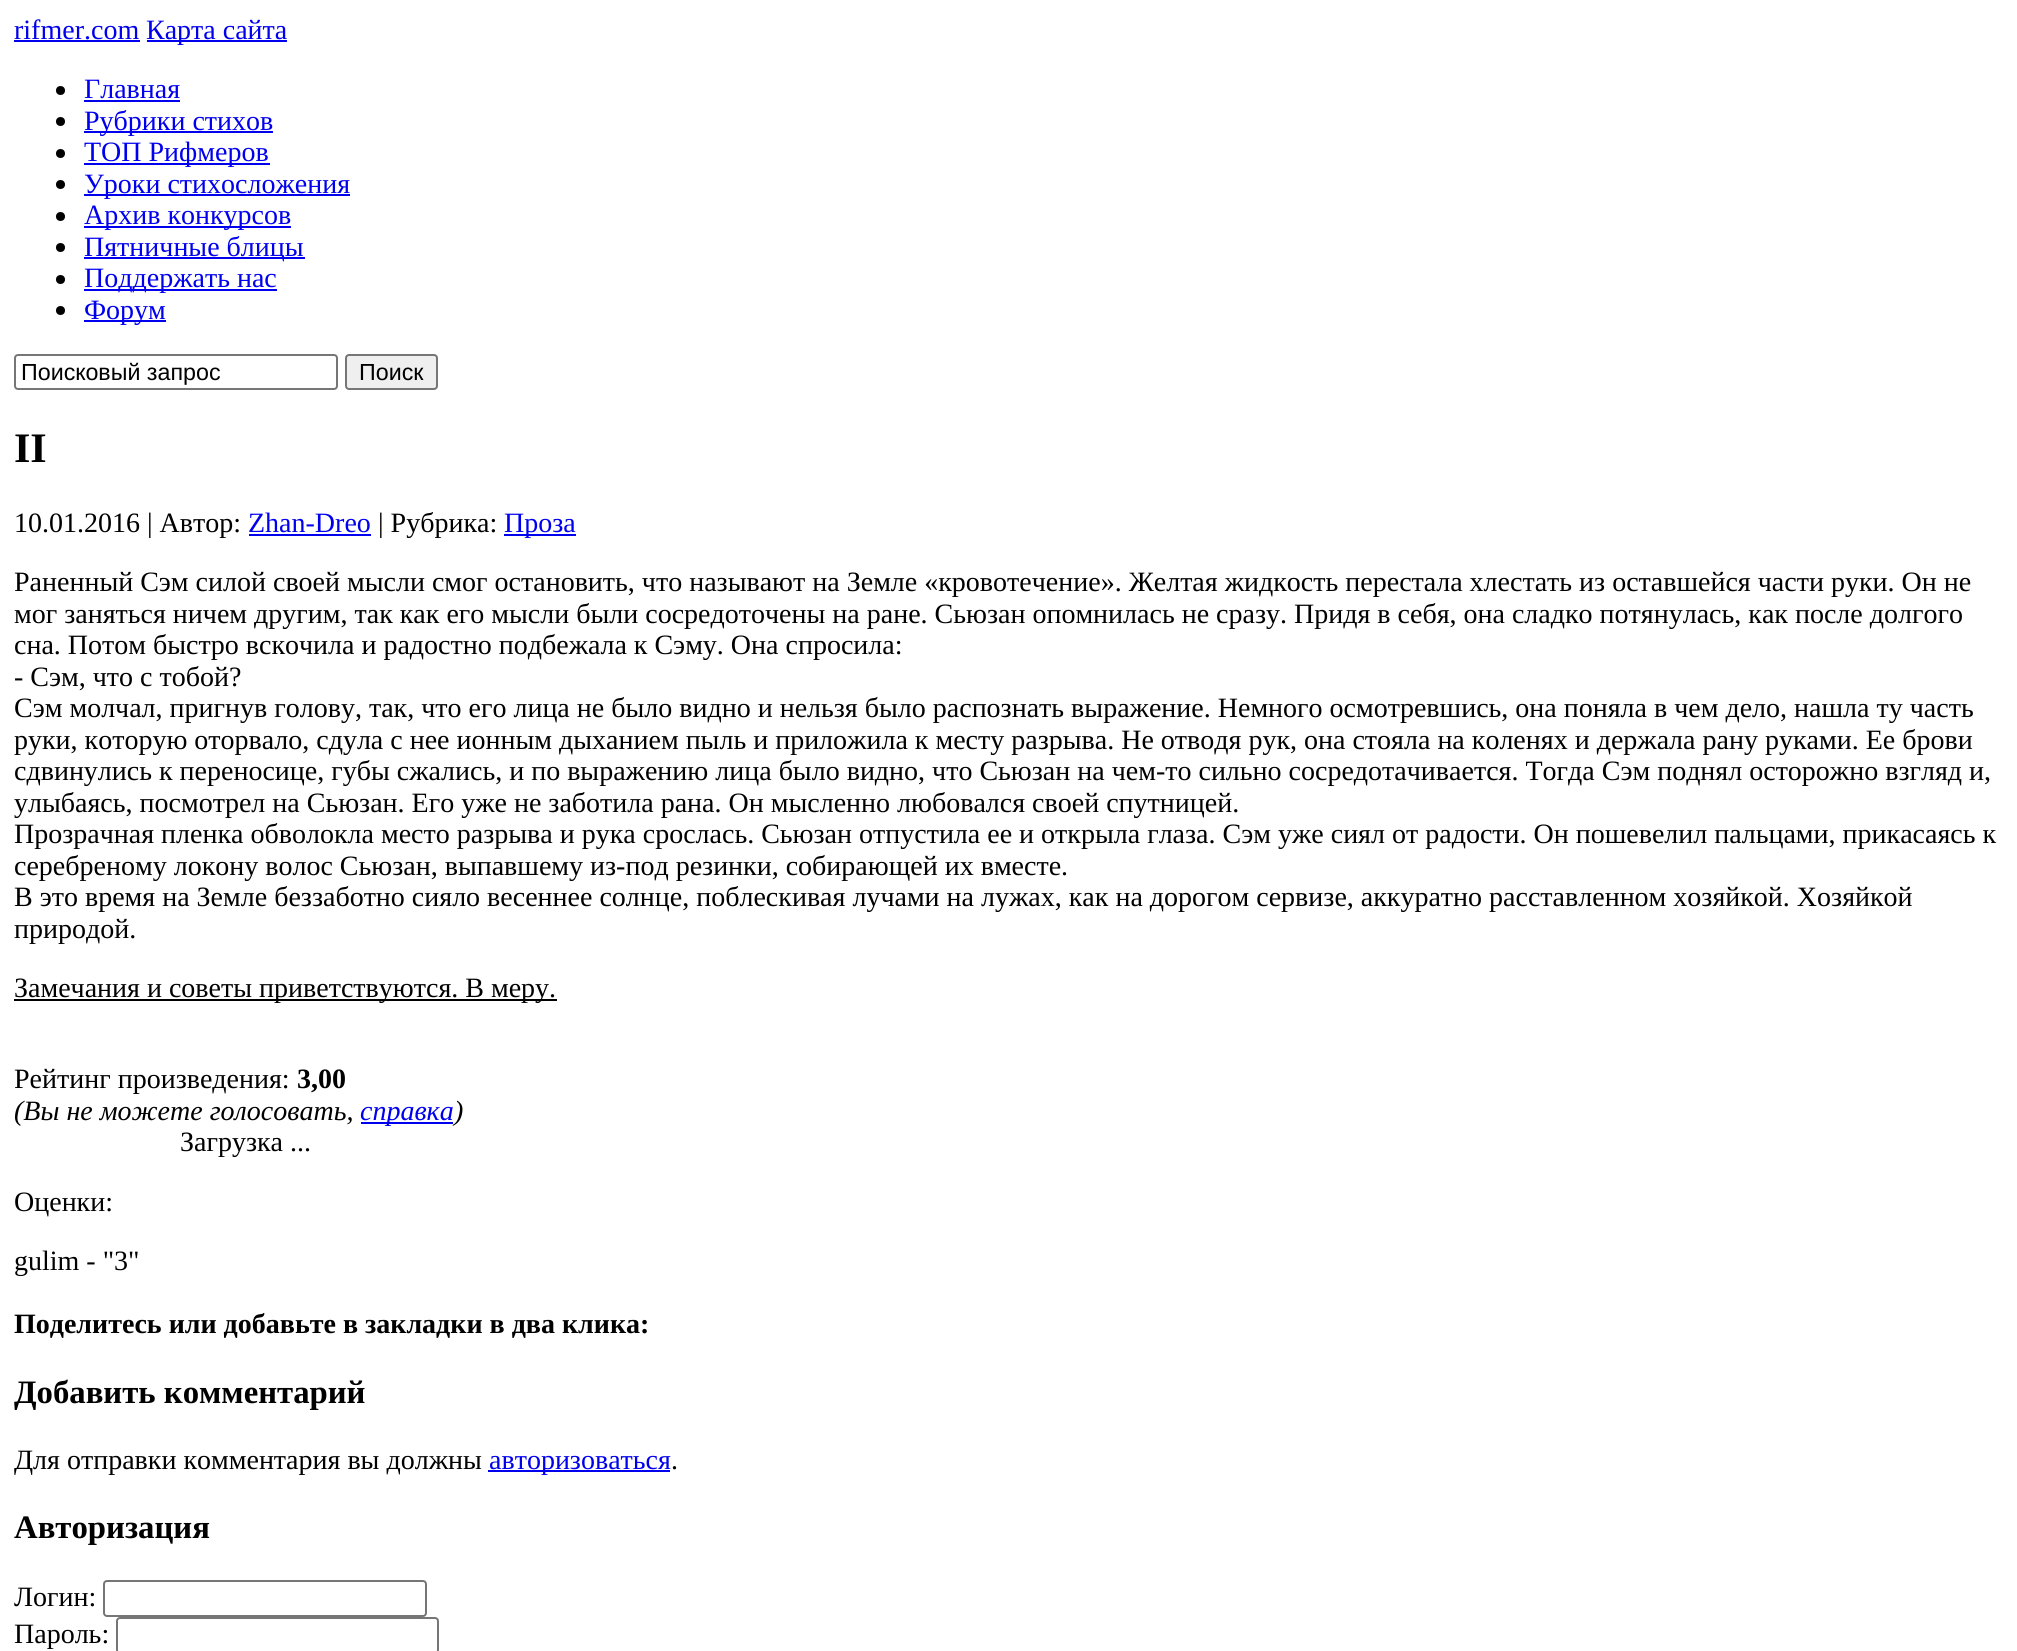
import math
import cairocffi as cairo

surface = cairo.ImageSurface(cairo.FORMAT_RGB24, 2017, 1651)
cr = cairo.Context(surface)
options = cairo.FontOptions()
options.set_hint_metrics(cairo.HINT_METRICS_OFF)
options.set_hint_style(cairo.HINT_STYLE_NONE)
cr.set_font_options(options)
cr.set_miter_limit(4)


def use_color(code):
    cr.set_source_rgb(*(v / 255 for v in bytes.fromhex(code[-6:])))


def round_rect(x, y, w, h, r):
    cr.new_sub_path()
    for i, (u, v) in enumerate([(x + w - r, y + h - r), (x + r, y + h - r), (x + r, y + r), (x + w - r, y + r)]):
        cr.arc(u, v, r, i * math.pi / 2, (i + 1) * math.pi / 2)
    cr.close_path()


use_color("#ffffff")
cr.paint()
cr.select_font_face("Liberation Serif")
cr.set_font_size(28)
use_color("#0000ee")
cr.move_to(14, 39)
cr.show_text("rifmer.com")
cr.rectangle(14, 40, 126, 2)
cr.fill()
cr.rectangle(147, 40, 140, 2)
cr.fill()
cr.move_to(146, 39)
cr.show_text("Карта сайта")
use_color("#000000")
cr.new_path()
cr.arc(60.5, 90.5, 4.5, 0, 2 * math.pi)
cr.fill()
use_color("#0000ee")
cr.move_to(84, 98)
cr.show_text("Главная")
cr.rectangle(84, 100, 96, 2)
cr.fill()
use_color("#000000")
cr.arc(60.5, 121.5, 4.5, 0, 2 * math.pi)
cr.fill()
use_color("#0000ee")
cr.rectangle(84, 131, 189, 2)
cr.fill()
cr.move_to(84, 130)
cr.show_text("Рубрики стихов")
use_color("#000000")
cr.new_path()
cr.arc(60.5, 153.5, 4.5, 0, 2 * math.pi)
cr.fill()
use_color("#0000ee")
cr.rectangle(84, 163, 186, 2)
cr.fill()
cr.move_to(84, 161)
cr.show_text("ТОП Рифмеров")
use_color("#000000")
cr.new_path()
cr.arc(60.5, 184.5, 4.5, 0, 2 * math.pi)
cr.fill()
use_color("#0000ee")
cr.rectangle(84, 194, 266, 2)
cr.fill()
cr.move_to(84, 193)
cr.show_text("Уроки стихосложения")
use_color("#000000")
cr.new_path()
cr.arc(60.5, 216.5, 4.5, 0, 2 * math.pi)
cr.fill()
use_color("#0000ee")
cr.rectangle(84, 226, 207, 2)
cr.fill()
cr.move_to(84, 224)
cr.show_text("Архив конкурсов")
use_color("#000000")
cr.new_path()
cr.arc(60.5, 247.5, 4.5, 0, 2 * math.pi)
cr.fill()
use_color("#0000ee")
cr.rectangle(84, 257, 221, 2)
cr.fill()
cr.move_to(84, 256)
cr.show_text("Пятничные блицы")
use_color("#000000")
cr.new_path()
cr.arc(60.5, 279.5, 4.5, 0, 2 * math.pi)
cr.fill()
use_color("#0000ee")
cr.rectangle(84, 289, 193, 2)
cr.fill()
cr.move_to(84, 287)
cr.show_text("Поддержать нас")
use_color("#000000")
cr.new_path()
cr.arc(60.5, 310.5, 4.5, 0, 2 * math.pi)
cr.fill()
use_color("#0000ee")
cr.rectangle(84, 320, 82, 2)
cr.fill()
cr.move_to(84, 319)
cr.show_text("Форум")
round_rect(15, 355, 322, 34, 3)
use_color("#767676")
cr.stroke()
cr.select_font_face("Liberation Sans")
cr.set_font_size(23.25)
use_color("#000000")
cr.move_to(21, 380)
cr.show_text("Поисковый запрос")
use_color("#efefef")
round_rect(346, 355, 91, 34, 3)
cr.fill_preserve()
use_color("#767676")
cr.stroke()
use_color("#000000")
cr.move_to(359, 380)
cr.show_text("Поиск")
cr.select_font_face("Liberation Serif", cairo.FONT_SLANT_NORMAL, cairo.FONT_WEIGHT_BOLD)
cr.set_font_size(42)
cr.move_to(14, 462)
cr.show_text("II")
cr.select_font_face("Liberation Serif")
cr.set_font_size(28)
cr.move_to(14, 532)
cr.show_text("10.01.2016 | Автор:")
use_color("#0000ee")
cr.move_to(248, 532)
cr.show_text("Zhan-Dreo")
cr.rectangle(249, 534, 122, 2)
cr.fill()
use_color("#000000")
cr.move_to(378, 532)
cr.show_text("| Рубрика:")
use_color("#0000ee")
cr.rectangle(504, 534, 72, 2)
cr.fill()
cr.move_to(504, 532)
cr.show_text("Проза")
use_color("#000000")
cr.move_to(14, 591)
cr.show_text("Раненный Сэм силой своей мысли смог остановить, что называют на Земле «кровотечение». Желтая жидкость перестала хлестать из оставшейся части руки. Он не")
cr.move_to(14, 623)
cr.show_text("мог заняться ничем другим, так как его мысли были сосредоточены на ране. Сьюзан опомнилась не сразу. Придя в себя, она сладко потянулась, как после долгого")
cr.move_to(14, 654)
cr.show_text("сна. Потом быстро вскочила и радостно подбежала к Сэму. Она спросила:")
cr.move_to(14, 686)
cr.show_text("- Сэм, что с тобой?")
cr.move_to(14, 717)
cr.show_text("Сэм молчал, пригнув голову, так, что его лица не было видно и нельзя было распознать выражение. Немного осмотревшись, она поняла в чем дело, нашла ту часть")
cr.move_to(14, 749)
cr.show_text("руки, которую оторвало, сдула с нее ионным дыханием пыль и приложила к месту разрыва. Не отводя рук, она стояла на коленях и держала рану руками. Ее брови")
cr.move_to(14, 780)
cr.show_text("сдвинулись к переносице, губы сжались, и по выражению лица было видно, что Сьюзан на чем-то сильно сосредотачивается. Тогда Сэм поднял осторожно взгляд и,")
cr.move_to(14, 812)
cr.show_text("улыбаясь, посмотрел на Сьюзан. Его уже не заботила рана. Он мысленно любовался своей спутницей.")
cr.move_to(14, 843)
cr.show_text("Прозрачная пленка обволокла место разрыва и рука срослась. Сьюзан отпустила ее и открыла глаза. Сэм уже сиял от радости. Он пошевелил пальцами, прикасаясь к")
cr.move_to(14, 875)
cr.show_text("серебреному локону волос Сьюзан, выпавшему из-под резинки, собирающей их вместе.")
cr.move_to(14, 906)
cr.show_text("В это время на Земле беззаботно сияло весеннее солнце, поблескивая лучами на лужах, как на дорогом сервизе, аккуратно расставленном хозяйкой. Хозяйкой")
cr.move_to(14, 938)
cr.show_text("природой.")
cr.rectangle(14, 999, 543, 2)
cr.fill()
cr.move_to(14, 997)
cr.show_text("Замечания и советы приветствуются. В меру.")
cr.move_to(14, 1088)
cr.show_text("Рейтинг произведения:")
cr.select_font_face("Liberation Serif", cairo.FONT_SLANT_NORMAL, cairo.FONT_WEIGHT_BOLD)
cr.move_to(297, 1088)
cr.show_text("3,00")
cr.select_font_face("Liberation Serif", cairo.FONT_SLANT_ITALIC)
cr.move_to(14, 1120)
cr.show_text("(Вы не можете голосовать,")
use_color("#0000ee")
cr.rectangle(361, 1122, 92, 2)
cr.fill()
cr.move_to(360, 1120)
cr.show_text("справка")
use_color("#000000")
cr.move_to(454, 1120)
cr.show_text(")")
cr.select_font_face("Liberation Serif")
cr.move_to(180, 1151)
cr.show_text("Загрузка ...")
cr.move_to(14, 1211)
cr.show_text("Оценки:")
cr.move_to(14, 1270)
cr.show_text("gulim - \"3\"")
cr.select_font_face("Liberation Serif", cairo.FONT_SLANT_NORMAL, cairo.FONT_WEIGHT_BOLD)
cr.move_to(14, 1333)
cr.show_text("Поделитесь или добавьте в закладки в два клика:")
cr.set_font_size(32.75)
cr.move_to(14, 1403)
cr.show_text("Добавить комментарий")
cr.select_font_face("Liberation Serif")
cr.set_font_size(28)
cr.move_to(14, 1469)
cr.show_text("Для отправки комментария вы должны")
use_color("#0000ee")
cr.rectangle(488, 1470, 182, 2)
cr.fill()
cr.move_to(489, 1469)
cr.show_text("авторизоваться")
use_color("#000000")
cr.move_to(671, 1469)
cr.show_text(".")
cr.select_font_face("Liberation Serif", cairo.FONT_SLANT_NORMAL, cairo.FONT_WEIGHT_BOLD)
cr.set_font_size(32.75)
cr.move_to(14, 1538)
cr.show_text("Авторизация")
cr.select_font_face("Liberation Serif")
cr.set_font_size(28)
cr.move_to(14, 1606)
cr.show_text("Логин:")
round_rect(104, 1581, 322, 35, 3)
use_color("#767676")
cr.stroke()
use_color("#000000")
cr.move_to(14, 1643)
cr.show_text("Пароль:")
round_rect(117, 1618, 321, 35, 3)
use_color("#767676")
cr.stroke()
surface.write_to_png("result.png")
